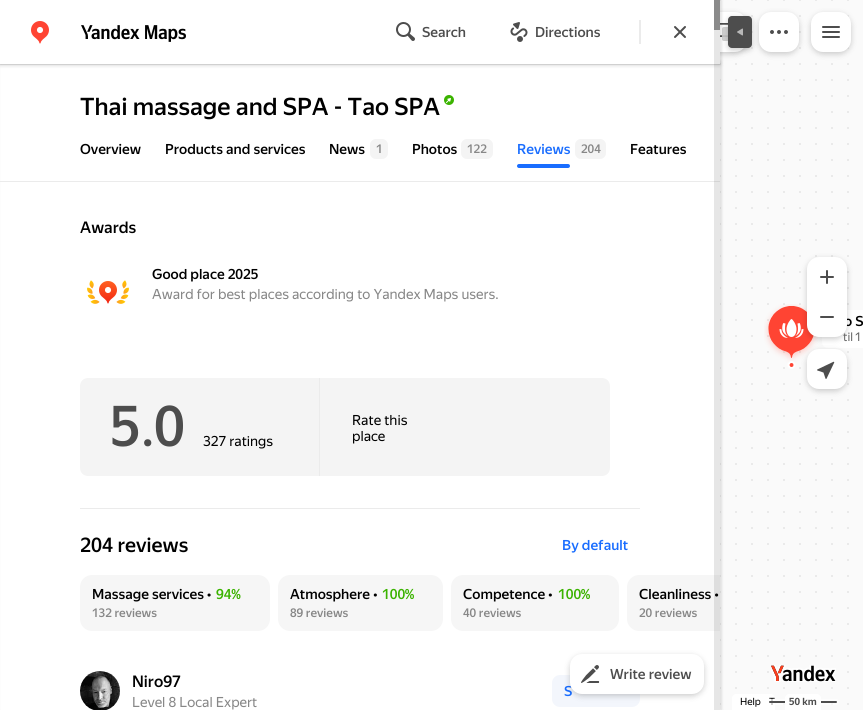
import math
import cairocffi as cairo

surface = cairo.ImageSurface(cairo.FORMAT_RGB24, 863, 710)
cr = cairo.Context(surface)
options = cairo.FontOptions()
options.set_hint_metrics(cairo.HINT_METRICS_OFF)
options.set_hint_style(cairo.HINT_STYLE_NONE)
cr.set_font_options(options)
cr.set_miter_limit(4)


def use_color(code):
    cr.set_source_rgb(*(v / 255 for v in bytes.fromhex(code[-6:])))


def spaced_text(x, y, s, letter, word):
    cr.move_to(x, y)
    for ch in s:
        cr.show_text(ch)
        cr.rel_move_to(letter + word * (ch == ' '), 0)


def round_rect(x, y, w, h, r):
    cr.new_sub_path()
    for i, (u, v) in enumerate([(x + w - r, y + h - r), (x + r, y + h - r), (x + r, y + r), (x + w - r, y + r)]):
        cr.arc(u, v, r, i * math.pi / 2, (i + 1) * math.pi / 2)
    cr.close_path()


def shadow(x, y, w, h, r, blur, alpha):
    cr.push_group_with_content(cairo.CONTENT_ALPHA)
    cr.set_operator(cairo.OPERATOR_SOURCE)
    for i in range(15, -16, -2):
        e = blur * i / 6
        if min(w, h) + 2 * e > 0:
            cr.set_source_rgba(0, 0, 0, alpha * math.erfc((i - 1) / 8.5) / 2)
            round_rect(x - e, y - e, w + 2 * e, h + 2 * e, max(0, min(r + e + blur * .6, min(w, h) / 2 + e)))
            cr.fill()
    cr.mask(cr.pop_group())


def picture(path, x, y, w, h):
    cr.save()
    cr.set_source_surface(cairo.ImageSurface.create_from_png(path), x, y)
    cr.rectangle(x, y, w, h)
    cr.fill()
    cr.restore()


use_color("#ffffff")
cr.paint()
picture("img1.png", 720, 0, 143, 710)
use_color("#000000")
shadow(667, 14, 80, 40, 12, 3, 0.2)
use_color("#ffffff")
cr.new_path()
cr.move_to(707, 12)
cr.line_to(735, 12)
cr.curve_to(741.5, 12, 747, 17.5, 747, 24)
cr.line_to(747, 40)
cr.curve_to(747, 46.5, 741.5, 52, 735, 52)
cr.line_to(707, 52)
cr.close_path()
cr.fill()
picture("img12.png", 720, 23, 8, 18)
use_color("#000000")
shadow(2, 0, 720, 710, 0, 1, 0.1)
use_color("#ffffff")
cr.rectangle(1, 65, 719, 645)
cr.fill()
use_color("#ebebeb")
cr.rectangle(0, 64, 720, 1)
cr.fill()
use_color("#000000")
shadow(0, 61, 720, 4, 0, 2, 0.2)
shadow(759, 14, 40, 40, 12, 3, 0.2)
use_color("#ffffff")
round_rect(759, 12, 40, 40, 12)
cr.fill()
use_color("#000000")
shadow(728, 18, 24, 32, 4, 3, 0.2)
use_color("#ffffff")
cr.rectangle(0, 0, 720, 64)
cr.fill()
use_color("#8a8a8a")
cr.rectangle(714, 0, 6, 30)
cr.fill()
use_color("#ebebeb")
cr.rectangle(0, 181, 720, 1)
cr.fill()
use_color("#f6f6f6")
cr.new_path()
cr.move_to(639, 575)
cr.line_to(720, 575)
cr.line_to(720, 631)
cr.line_to(639, 631)
cr.curve_to(632.5, 631, 627, 625.5, 627, 619)
cr.line_to(627, 587)
cr.curve_to(627, 580.5, 632.5, 575, 639, 575)
cr.close_path()
cr.fill()
cr.set_source_rgba(0, 0, 0, 0.1)
cr.rectangle(714, 30, 6, 680)
cr.fill()
picture("img2.png", 31, 21, 18, 23)
picture("img3.png", 81, 25, 105, 17)
picture("img4.png", 396, 22, 19, 19)
cr.select_font_face("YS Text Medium")
cr.set_font_size(14)
use_color("#4d4d4d")
cr.move_to(422, 37)
cr.show_text("Search")
picture("img5.png", 510, 22, 18, 20)
cr.move_to(535, 37)
cr.show_text("Directions")
use_color("#ebebeb")
cr.rectangle(639, 20, 2, 24)
cr.fill()
picture("img6.png", 674, 26, 12, 12)
cr.set_font_size(24)
use_color("#000000")
cr.move_to(80, 115)
cr.show_text("Thai massage and SPA - Tao SPA")
picture("img7.png", 444, 95, 10, 10)
cr.set_font_size(14)
cr.move_to(80, 154)
cr.show_text("Overview")
cr.move_to(165, 154)
cr.show_text("Products and services")
cr.move_to(329, 154)
cr.show_text("News")
use_color("#f4f4f4")
round_rect(370, 139, 18, 20, 6)
cr.fill()
cr.set_font_size(12)
use_color("#878787")
cr.move_to(376, 153)
cr.show_text("1")
cr.set_font_size(14)
use_color("#000000")
cr.move_to(412, 154)
cr.show_text("Photos")
use_color("#f4f4f4")
round_rect(461, 139, 32, 20, 6)
cr.fill()
cr.set_font_size(12)
use_color("#878787")
cr.move_to(467, 153)
cr.show_text("122")
cr.set_font_size(14)
use_color("#196dff")
cr.move_to(517, 154)
cr.show_text("Reviews")
use_color("#f4f4f4")
round_rect(575, 139, 31, 20, 6)
cr.fill()
cr.set_font_size(12)
use_color("#878787")
cr.move_to(581, 153)
cr.show_text("204")
cr.set_font_size(14)
use_color("#000000")
cr.move_to(630, 154)
cr.show_text("Features")
use_color("#196dff")
round_rect(517, 164, 53, 4, 2)
cr.fill()
cr.set_font_size(16)
use_color("#000000")
cr.move_to(80, 233)
cr.show_text("Awards")
picture("img8.png", 87, 280, 42, 24)
cr.set_font_size(14)
cr.move_to(152, 279)
cr.show_text("Good place 2025")
cr.select_font_face("YS Text")
use_color("#878787")
cr.move_to(152, 299)
cr.show_text("Award for best places according to Yandex Maps users.")
use_color("#f4f4f4")
cr.new_path()
cr.move_to(88, 378)
cr.line_to(319, 378)
cr.line_to(319, 476)
cr.line_to(88, 476)
cr.curve_to(83.5, 476, 80, 472.5, 80, 468)
cr.line_to(80, 386)
cr.curve_to(80, 381.5, 83.5, 378, 88, 378)
cr.close_path()
cr.fill()
cr.select_font_face("YS Text Medium")
cr.set_font_size(56)
use_color("#4d4d4d")
cr.move_to(110, 446)
cr.show_text("5")
cr.select_font_face("YS Text")
cr.move_to(141, 446)
cr.show_text(".")
cr.select_font_face("YS Text Medium")
cr.move_to(154, 446)
cr.show_text("0")
cr.select_font_face("YS Text")
cr.set_font_size(14)
use_color("#000000")
cr.move_to(203, 446)
cr.show_text("327 ratings")
use_color("#f4f4f4")
cr.new_path()
cr.move_to(319, 378)
cr.line_to(602, 378)
cr.curve_to(606.5, 378, 610, 381.5, 610, 386)
cr.line_to(610, 468)
cr.curve_to(610, 472.5, 606.5, 476, 602, 476)
cr.line_to(319, 476)
cr.close_path()
cr.fill()
use_color("#ebebeb")
cr.rectangle(319, 378, 1, 98)
cr.fill()
use_color("#000000")
cr.move_to(352, 425)
cr.show_text("Rate this")
cr.move_to(352, 441)
cr.show_text("place")
use_color("#ebebeb")
cr.rectangle(80, 508, 560, 1)
cr.fill()
cr.select_font_face("YS Text Medium")
cr.set_font_size(20)
use_color("#000000")
cr.move_to(80, 552)
cr.show_text("204 reviews")
cr.set_font_size(14)
use_color("#196dff")
cr.move_to(562, 550)
cr.show_text("By default")
use_color("#f6f6f6")
round_rect(80, 575, 190, 56, 12)
cr.fill()
use_color("#000000")
cr.move_to(92, 599)
cr.show_text("Massage services •")
use_color("#3bb300")
cr.move_to(216, 599)
cr.show_text("94%")
cr.set_font_size(12)
use_color("#878787")
cr.move_to(92, 617)
cr.show_text("132 reviews")
use_color("#f6f6f6")
round_rect(278, 575, 165, 56, 12)
cr.fill()
cr.set_font_size(14)
use_color("#000000")
cr.move_to(290, 599)
cr.show_text("Atmosphere •")
use_color("#3bb300")
cr.move_to(382, 599)
cr.show_text("100%")
cr.set_font_size(12)
use_color("#878787")
cr.move_to(290, 617)
cr.show_text("89 reviews")
use_color("#f6f6f6")
round_rect(451, 575, 168, 56, 12)
cr.fill()
cr.set_font_size(14)
use_color("#000000")
cr.move_to(463, 599)
cr.show_text("Competence •")
use_color("#3bb300")
cr.move_to(558, 599)
cr.show_text("100%")
cr.set_font_size(12)
use_color("#878787")
cr.move_to(463, 617)
cr.show_text("40 reviews")
cr.set_font_size(14)
use_color("#000000")
cr.move_to(639, 599)
cr.show_text("Cleanliness •")
cr.set_font_size(12)
use_color("#878787")
cr.move_to(639, 617)
cr.show_text("20 reviews")
picture("img9.png", 80, 671, 40, 39)
cr.set_font_size(16)
use_color("#000000")
cr.move_to(132, 687)
cr.show_text("Niro97")
cr.select_font_face("YS Text")
cr.set_font_size(14)
use_color("#878787")
cr.move_to(132, 707)
cr.show_text("Level 8 Local Expert")
use_color("#f3f6fc")
round_rect(552, 675, 88, 32, 8)
cr.fill()
cr.select_font_face("YS Text Medium")
use_color("#196dff")
cr.move_to(564, 696)
cr.show_text("S")
use_color("#000000")
shadow(570, 656, 134, 40, 12, 3, 0.2)
use_color("#ffffff")
round_rect(570, 654, 134, 40, 12)
cr.fill()
picture("img10.png", 581, 665, 19, 18)
use_color("#4d4d4d")
cr.move_to(610, 679)
cr.show_text("Write review")
round_rect(728, 16, 24, 32, 4)
cr.fill()
picture("img11.png", 737, 28, 6, 8)
picture("img13.png", 770, 30, 18, 4)
use_color("#000000")
shadow(811, 14, 40, 40, 12, 3, 0.2)
use_color("#ffffff")
round_rect(811, 12, 40, 40, 12)
cr.fill()
picture("img14.png", 822, 26, 18, 12)
picture("img19.png", 764, 304, 54, 65)
picture("img20.png", 779, 319, 25, 19)
cr.set_source_rgba(1, 1, 1, 0.9)
cr.new_path()
cr.move_to(828, 310)
cr.line_to(863, 310)
cr.line_to(863, 348)
cr.line_to(828, 348)
cr.curve_to(824.5, 348, 822, 345.5, 822, 342)
cr.line_to(822, 316)
cr.curve_to(822, 312.5, 824.5, 310, 828, 310)
cr.close_path()
cr.fill()
use_color("#000000")
shadow(807, 259, 40, 80, 12, 3, 0.2)
use_color("#ffffff")
cr.new_path()
cr.move_to(819, 257)
cr.line_to(835, 257)
cr.curve_to(841.5, 257, 847, 262.5, 847, 269)
cr.line_to(847, 297)
cr.line_to(807, 297)
cr.line_to(807, 269)
cr.curve_to(807, 262.5, 812.5, 257, 819, 257)
cr.close_path()
cr.fill()
picture("img15.png", 820, 270, 14, 14)
use_color("#000000")
cr.move_to(844, 326)
cr.show_text("o S")
cr.select_font_face("YS Text")
cr.set_font_size(12)
use_color("#666666")
spaced_text(843, 341, "til 1", 0, -1)
use_color("#ffffff")
cr.new_path()
cr.move_to(807, 297)
cr.line_to(847, 297)
cr.line_to(847, 325)
cr.curve_to(847, 331.5, 841.5, 337, 835, 337)
cr.line_to(819, 337)
cr.curve_to(812.5, 337, 807, 331.5, 807, 325)
cr.close_path()
cr.fill()
picture("img16.png", 820, 316, 14, 2)
use_color("#000000")
shadow(807, 351, 40, 40, 12, 3, 0.2)
use_color("#ffffff")
round_rect(807, 349, 40, 40, 12)
cr.fill()
picture("img17.png", 817, 361, 18, 18)
picture("img18.png", 771, 665, 65, 17)
cr.new_path()
cr.move_to(736, 694)
cr.line_to(771, 694)
cr.curve_to(773, 694, 775, 696, 775, 698)
cr.line_to(775, 710)
cr.line_to(732, 710)
cr.line_to(732, 698)
cr.curve_to(732, 696, 734, 694, 736, 694)
cr.close_path()
cr.fill()
cr.set_font_size(10)
use_color("#000000")
cr.move_to(740, 705)
cr.show_text("Help")
cr.move_to(769, 705)
cr.show_text("T")
cr.set_source_rgba(1, 1, 1, 0.6)
round_rect(767, 699, 72, 6, 3)
cr.fill()
use_color("#4d4d4d")
round_rect(769, 701, 68, 2, 1)
cr.fill()
use_color("#ffffff")
cr.new_path()
cr.move_to(789, 694)
cr.line_to(817, 694)
cr.curve_to(819, 694, 821, 696, 821, 698)
cr.line_to(821, 710)
cr.line_to(785, 710)
cr.line_to(785, 698)
cr.curve_to(785, 696, 787, 694, 789, 694)
cr.close_path()
cr.fill()
cr.select_font_face("YS Text", cairo.FONT_SLANT_NORMAL, cairo.FONT_WEIGHT_BOLD)
use_color("#4d4d4d")
cr.move_to(789, 705)
cr.show_text("50 km")
surface.write_to_png("result.png")
